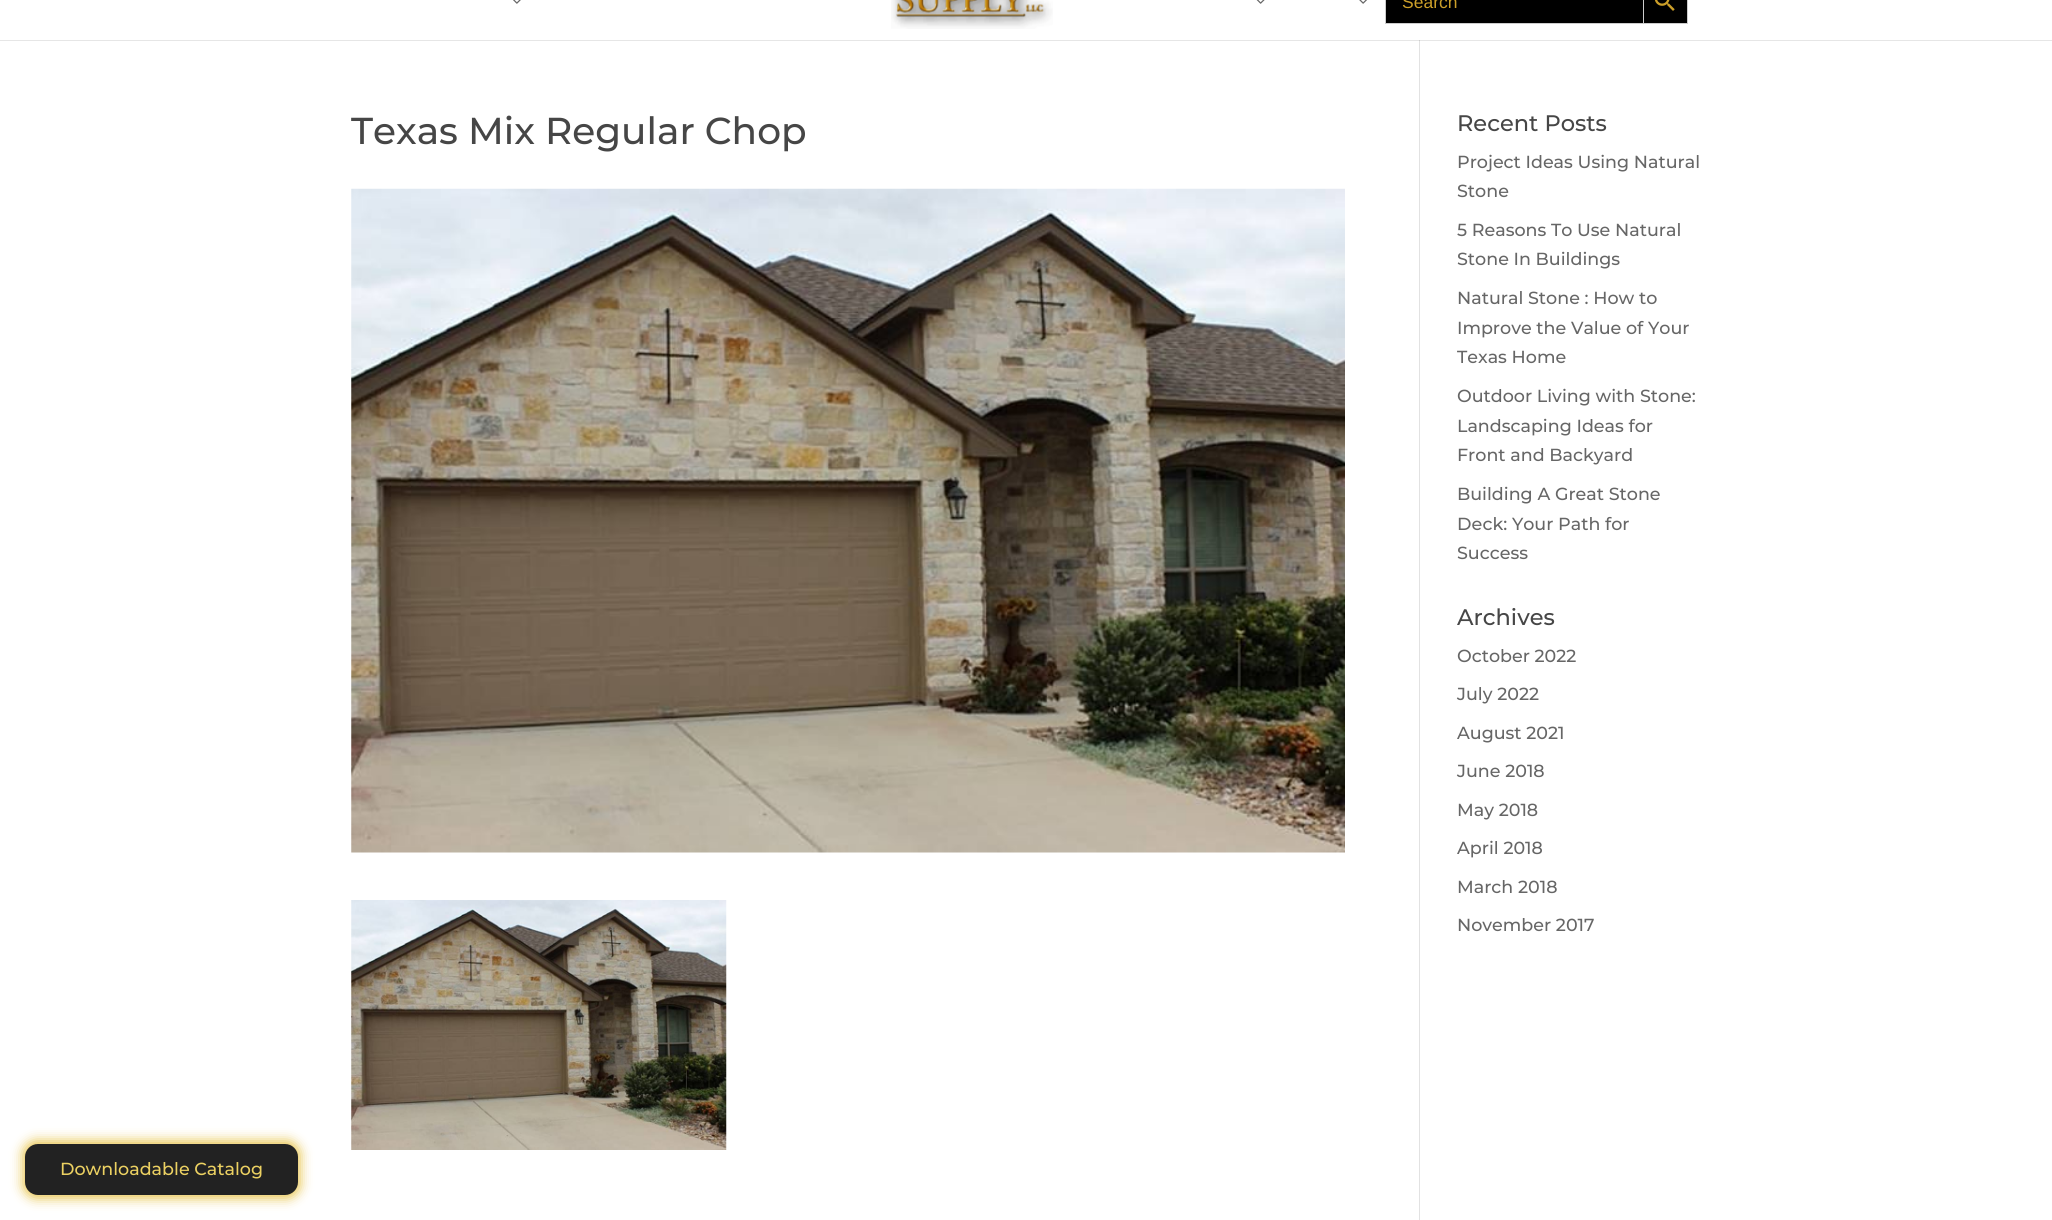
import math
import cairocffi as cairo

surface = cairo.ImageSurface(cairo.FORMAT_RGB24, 2052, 1220)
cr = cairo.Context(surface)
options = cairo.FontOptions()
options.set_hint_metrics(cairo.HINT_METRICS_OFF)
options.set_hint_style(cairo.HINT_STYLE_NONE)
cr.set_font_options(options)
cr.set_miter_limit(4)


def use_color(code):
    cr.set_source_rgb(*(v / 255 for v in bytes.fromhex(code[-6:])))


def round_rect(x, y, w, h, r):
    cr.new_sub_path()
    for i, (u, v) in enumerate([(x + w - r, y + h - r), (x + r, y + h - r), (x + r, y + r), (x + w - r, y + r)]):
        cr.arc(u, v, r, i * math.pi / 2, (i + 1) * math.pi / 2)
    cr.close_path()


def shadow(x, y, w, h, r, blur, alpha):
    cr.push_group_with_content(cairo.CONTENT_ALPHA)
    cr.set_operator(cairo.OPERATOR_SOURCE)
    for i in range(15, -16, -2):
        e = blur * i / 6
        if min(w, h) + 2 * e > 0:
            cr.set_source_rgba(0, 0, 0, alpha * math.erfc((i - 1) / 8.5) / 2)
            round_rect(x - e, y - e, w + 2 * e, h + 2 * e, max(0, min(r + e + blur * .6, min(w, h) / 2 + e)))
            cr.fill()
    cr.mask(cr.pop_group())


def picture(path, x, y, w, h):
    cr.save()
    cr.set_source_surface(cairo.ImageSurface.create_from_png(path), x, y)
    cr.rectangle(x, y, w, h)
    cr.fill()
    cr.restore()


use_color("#ffffff")
cr.paint()
use_color("#e2e2e2")
cr.rectangle(1419, 40, 1, 1180)
cr.fill()
cr.set_source_rgba(0, 0, 0, 0.1)
cr.new_path()
cr.move_to(0, 40)
cr.line_to(0, 41)
cr.line_to(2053, 41)
cr.line_to(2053, -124)
cr.line_to(2052, -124)
cr.line_to(2052, 40)
cr.close_path()
cr.fill()
picture("img1.png", 513, 0, 8, 4)
picture("img2.png", 891, 0, 162, 29)
picture("img3.png", 1256, 0, 9, 4)
picture("img4.png", 1359, 0, 8, 4)
use_color("#000000")
cr.rectangle(1386, 0, 257, 23)
cr.fill()
use_color("#cccccc")
cr.rectangle(1385, 23, 258, 1)
cr.fill()
cr.rectangle(1385, 0, 1, 24)
cr.fill()
cr.select_font_face("Liberation Sans")
cr.set_font_size(17.5)
use_color("#cc9f29")
cr.move_to(1402, 8)
cr.show_text("Search")
use_color("#000000")
cr.rectangle(1643.5, -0.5, 44, 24)
cr.fill_preserve()
use_color("#cccccc")
cr.set_line_width(1)
cr.stroke()
picture("img5.png", 1654, 0, 21, 11)
cr.select_font_face("Montserrat Medium")
cr.set_font_size(37.5)
use_color("#464646")
cr.move_to(351, 144)
cr.show_text("Texas Mix Regular Chop")
picture("img6.png", 351, 188, 994, 665)
picture("img7.png", 351, 900, 376, 250)
cr.set_font_size(22.5)
cr.move_to(1457, 131)
cr.show_text("Recent Posts")
cr.set_font_size(17.5)
use_color("#666666")
cr.move_to(1457, 168)
cr.show_text("Project Ideas Using Natural")
cr.move_to(1457, 197)
cr.show_text("Stone")
cr.move_to(1457, 236)
cr.show_text("5 Reasons To Use Natural")
cr.move_to(1457, 265)
cr.show_text("Stone In Buildings")
cr.move_to(1457, 304)
cr.show_text("Natural Stone : How to")
cr.move_to(1457, 334)
cr.show_text("Improve the Value of Your")
cr.move_to(1457, 363)
cr.show_text("Texas Home")
cr.move_to(1457, 402)
cr.show_text("Outdoor Living with Stone:")
cr.move_to(1457, 432)
cr.show_text("Landscaping Ideas for")
cr.move_to(1457, 461)
cr.show_text("Front and Backyard")
cr.move_to(1457, 500)
cr.show_text("Building A Great Stone")
cr.move_to(1457, 530)
cr.show_text("Dесk: Your Path for")
cr.move_to(1457, 559)
cr.show_text("Success")
cr.set_font_size(22.5)
use_color("#464646")
cr.move_to(1457, 625)
cr.show_text("Archives")
cr.set_font_size(17.5)
use_color("#666666")
cr.move_to(1457, 662)
cr.show_text("October 2022")
cr.move_to(1457, 700)
cr.show_text("July 2022")
cr.move_to(1457, 739)
cr.show_text("August 2021")
cr.move_to(1457, 777)
cr.show_text("June 2018")
cr.move_to(1457, 816)
cr.show_text("May 2018")
cr.move_to(1457, 854)
cr.show_text("April 2018")
cr.move_to(1457, 893)
cr.show_text("March 2018")
cr.move_to(1457, 931)
cr.show_text("November 2017")
use_color("#e7c245")
shadow(23, 1141, 277, 57, 13, 6, 1)
use_color("#222222")
round_rect(25, 1144, 273, 51, 13)
cr.fill()
use_color("#ecd162")
cr.move_to(60, 1175)
cr.show_text("Downloadable Catalog")
surface.write_to_png("result.png")
